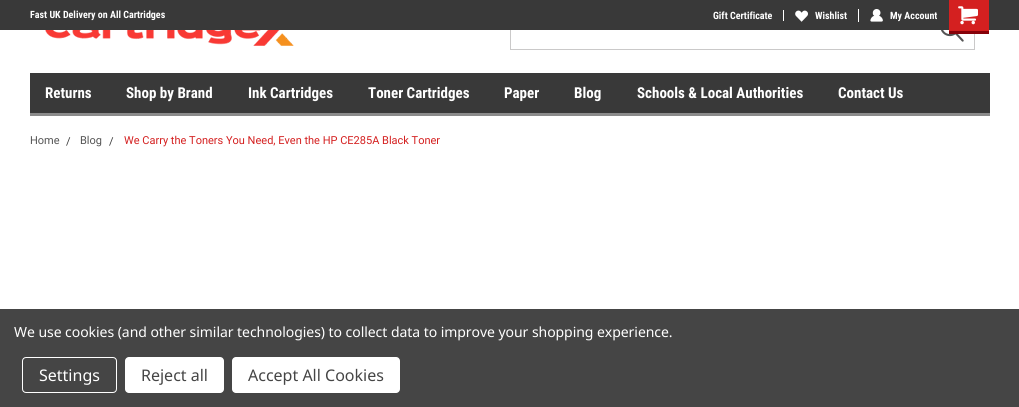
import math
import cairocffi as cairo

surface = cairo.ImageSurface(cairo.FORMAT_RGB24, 1019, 407)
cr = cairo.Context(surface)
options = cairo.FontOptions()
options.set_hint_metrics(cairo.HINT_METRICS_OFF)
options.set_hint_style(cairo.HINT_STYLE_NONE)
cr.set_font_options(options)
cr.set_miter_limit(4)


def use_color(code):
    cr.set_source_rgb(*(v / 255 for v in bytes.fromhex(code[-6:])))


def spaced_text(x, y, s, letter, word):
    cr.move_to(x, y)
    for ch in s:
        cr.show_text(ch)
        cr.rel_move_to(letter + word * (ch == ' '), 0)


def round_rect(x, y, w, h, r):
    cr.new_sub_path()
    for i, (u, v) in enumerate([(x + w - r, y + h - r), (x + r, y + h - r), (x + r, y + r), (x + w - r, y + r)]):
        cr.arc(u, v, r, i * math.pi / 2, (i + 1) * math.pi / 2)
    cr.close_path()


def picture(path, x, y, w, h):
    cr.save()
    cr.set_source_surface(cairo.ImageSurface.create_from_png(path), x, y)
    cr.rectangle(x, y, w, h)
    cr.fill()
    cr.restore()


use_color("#ffffff")
cr.paint()
picture("img1.png", 45, 30, 249, 16)
cr.rectangle(510.5, 8.5, 464, 41)
use_color("#cac9c9")
cr.set_line_width(1)
cr.stroke()
picture("img2.png", 941, 30, 23, 12)
use_color("#393939")
cr.rectangle(0, 0, 1019, 30)
cr.fill()
cr.select_font_face("Roboto Condensed", cairo.FONT_SLANT_NORMAL, cairo.FONT_WEIGHT_BOLD)
cr.set_font_size(10)
use_color("#ffffff")
cr.move_to(30, 18)
cr.show_text("Fast UK Delivery on All Cartridges")
cr.rectangle(783, 10, 1, 11)
cr.fill()
cr.move_to(713, 19)
cr.show_text("Gift Certificate")
cr.rectangle(858, 9, 1, 13)
cr.fill()
picture("img3.png", 795, 10, 13, 12)
cr.move_to(815, 19)
cr.show_text("Wishlist")
picture("img4.png", 870, 9, 13, 13)
cr.move_to(890, 19)
cr.show_text("My Account")
use_color("#d42020")
cr.rectangle(949, 0, 40, 31)
cr.fill()
use_color("#860109")
cr.rectangle(949, 31, 40, 3)
cr.fill()
picture("img5.png", 958, 6, 20, 19)
use_color("#393939")
cr.rectangle(30, 73, 960, 40)
cr.fill()
use_color("#8b8b8b")
cr.rectangle(30, 113, 960, 3)
cr.fill()
cr.set_font_size(15)
use_color("#ffffff")
cr.move_to(45, 98)
cr.show_text("Returns")
cr.move_to(126, 98)
cr.show_text("Shop by Brand")
cr.move_to(248, 98)
cr.show_text("Ink Cartridges")
cr.move_to(368, 98)
cr.show_text("Toner Cartridges")
cr.move_to(504, 98)
cr.show_text("Paper")
cr.move_to(574, 98)
cr.show_text("Blog")
cr.move_to(637, 98)
cr.show_text("Schools & Local Authorities")
cr.move_to(838, 98)
cr.show_text("Contact Us")
cr.select_font_face("Roboto")
cr.set_font_size(11)
use_color("#545454")
cr.move_to(30, 144)
cr.show_text("Home")
use_color("#393939")
cr.move_to(66, 145)
cr.show_text("/")
use_color("#545454")
cr.move_to(80, 144)
cr.show_text("Blog")
use_color("#393939")
cr.move_to(109, 145)
cr.show_text("/")
use_color("#d42020")
cr.move_to(124, 144)
cr.show_text("We Carry the Toners You Need, Even the HP CE285A Black Toner")
use_color("#454545")
cr.rectangle(0, 309, 1019, 98)
cr.fill()
cr.select_font_face("Noto Sans")
cr.set_font_size(14)
use_color("#ffffff")
spaced_text(14, 337, "We use cookies (and other similar technologies) to collect data to improve your shopping experience.", -0.05, 0)
round_rect(22.5, 357.5, 94, 35, 3.5)
cr.stroke()
cr.set_font_size(16)
cr.move_to(39, 381)
cr.show_text("Settings")
round_rect(125, 357, 99, 36, 4)
cr.fill()
use_color("#454545")
cr.move_to(141, 381)
cr.show_text("Reject all")
use_color("#ffffff")
round_rect(232, 357, 168, 36, 4)
cr.fill()
use_color("#454545")
cr.move_to(248, 381)
cr.show_text("Accept All Cookies")
surface.write_to_png("result.png")
